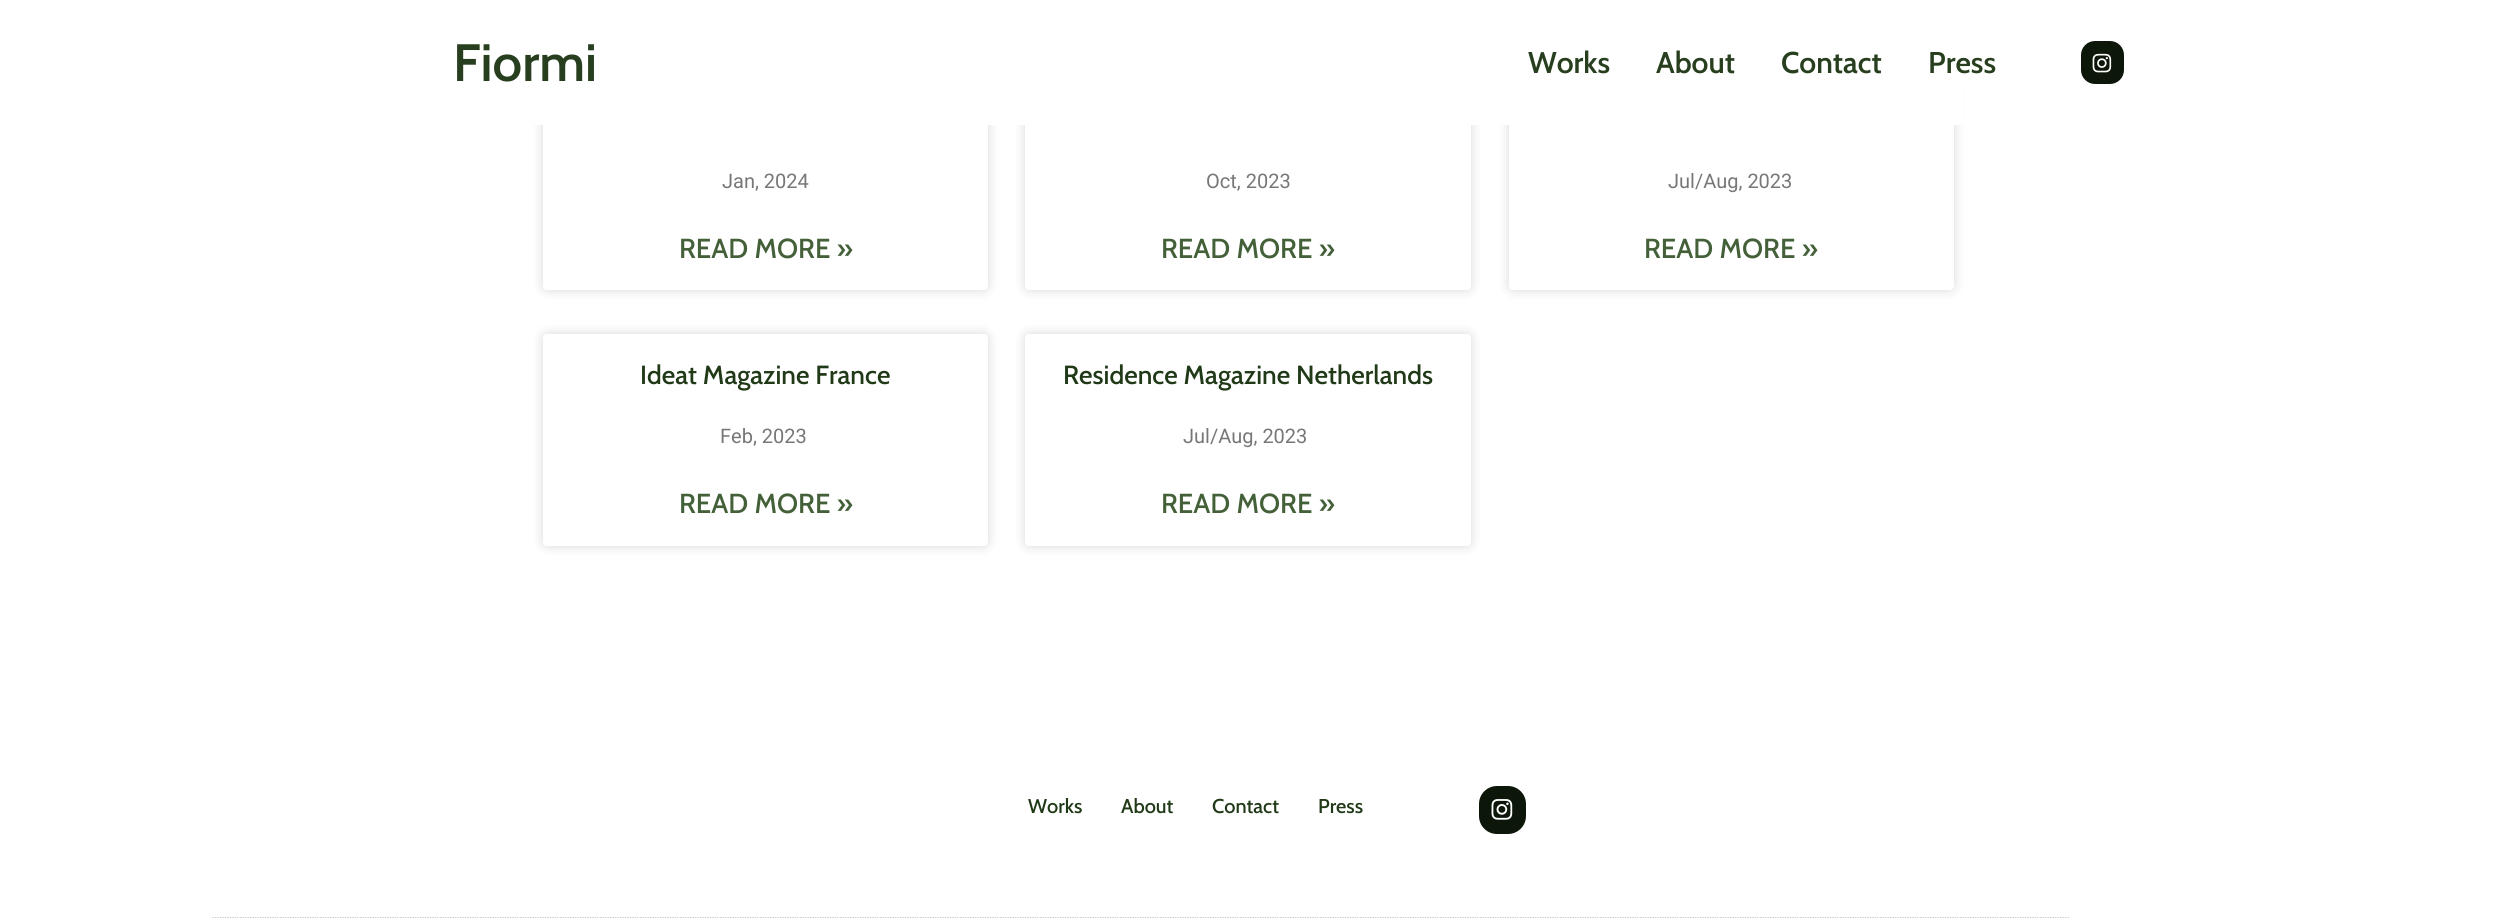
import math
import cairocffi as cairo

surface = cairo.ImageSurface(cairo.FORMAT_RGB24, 2496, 918)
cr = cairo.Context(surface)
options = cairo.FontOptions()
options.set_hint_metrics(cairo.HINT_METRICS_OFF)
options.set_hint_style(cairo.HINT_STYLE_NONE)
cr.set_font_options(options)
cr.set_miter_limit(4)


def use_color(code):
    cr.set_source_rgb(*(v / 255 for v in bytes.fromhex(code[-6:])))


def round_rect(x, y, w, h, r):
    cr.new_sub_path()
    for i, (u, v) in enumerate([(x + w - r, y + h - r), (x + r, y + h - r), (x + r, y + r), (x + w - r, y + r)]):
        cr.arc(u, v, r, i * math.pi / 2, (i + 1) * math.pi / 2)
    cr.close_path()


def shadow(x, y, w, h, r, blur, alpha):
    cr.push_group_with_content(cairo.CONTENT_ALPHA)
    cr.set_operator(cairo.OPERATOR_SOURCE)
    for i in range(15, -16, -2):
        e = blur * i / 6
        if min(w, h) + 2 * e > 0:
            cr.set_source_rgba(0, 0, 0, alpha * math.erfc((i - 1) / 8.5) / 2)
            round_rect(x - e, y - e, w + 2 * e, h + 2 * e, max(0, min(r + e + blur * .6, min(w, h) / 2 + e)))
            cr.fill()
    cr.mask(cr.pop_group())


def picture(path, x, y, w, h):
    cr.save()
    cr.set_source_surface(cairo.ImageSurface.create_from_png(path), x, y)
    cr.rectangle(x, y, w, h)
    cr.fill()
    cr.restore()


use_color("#ffffff")
cr.paint()
use_color("#000000")
shadow(543, 79, 445, 211, 4, 6, 0.15)
use_color("#ffffff")
round_rect(543, 79, 445, 211, 4)
cr.fill()
use_color("#000000")
shadow(1025, 79, 446, 211, 4, 6, 0.15)
use_color("#ffffff")
round_rect(1025, 79, 446, 211, 4)
cr.fill()
use_color("#000000")
shadow(1509, 79, 445, 211, 4, 6, 0.15)
use_color("#ffffff")
round_rect(1509, 79, 445, 211, 4)
cr.fill()
cr.rectangle(534, 70, 1429, 55)
cr.fill()
cr.select_font_face("Cabin SemiBold")
cr.set_font_size(52.5)
use_color("#273f1e")
cr.move_to(453, 81)
cr.show_text("Fiormi")
cr.set_font_size(30)
cr.move_to(1528, 73)
cr.show_text("Works")
cr.move_to(1656, 73)
cr.show_text("About")
cr.move_to(1781, 73)
cr.show_text("Contact")
cr.move_to(1928, 73)
cr.show_text("Press")
use_color("#0d1709")
round_rect(2081, 41, 43, 43, 14)
cr.fill()
picture("img1.png", 2092, 53, 20, 20)
cr.select_font_face("Roboto")
cr.set_font_size(20)
use_color("#777777")
cr.move_to(722, 188)
cr.show_text("Jan, 2024")
cr.select_font_face("Cabin Medium")
cr.set_font_size(27.5)
use_color("#436039")
cr.move_to(679, 258)
cr.show_text("READ MORE »")
cr.select_font_face("Roboto")
cr.set_font_size(20)
use_color("#777777")
cr.move_to(1206, 188)
cr.show_text("Oct, 2023")
cr.select_font_face("Cabin Medium")
cr.set_font_size(27.5)
use_color("#436039")
cr.move_to(1161, 258)
cr.show_text("READ MORE »")
cr.select_font_face("Roboto")
cr.set_font_size(20)
use_color("#777777")
cr.move_to(1668, 188)
cr.show_text("Jul/Aug, 2023")
cr.select_font_face("Cabin Medium")
cr.set_font_size(27.5)
use_color("#436039")
cr.move_to(1644, 258)
cr.show_text("READ MORE »")
use_color("#000000")
shadow(543, 334, 445, 212, 4, 6, 0.15)
use_color("#ffffff")
round_rect(543, 334, 445, 212, 4)
cr.fill()
cr.set_font_size(26.25)
use_color("#203917")
cr.move_to(640, 384)
cr.show_text("Ideat Magazine France")
cr.select_font_face("Roboto")
cr.set_font_size(20)
use_color("#777777")
cr.move_to(720, 443)
cr.show_text("Feb, 2023")
cr.select_font_face("Cabin Medium")
cr.set_font_size(27.5)
use_color("#436039")
cr.move_to(679, 513)
cr.show_text("READ MORE »")
cr.save()
cr.set_fill_rule(cairo.FILL_RULE_EVEN_ODD)
cr.new_path()
cr.move_to(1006, 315)
cr.line_to(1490, 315)
cr.line_to(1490, 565)
cr.line_to(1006, 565)
cr.close_path()
cr.move_to(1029, 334)
cr.line_to(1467, 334)
cr.curve_to(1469, 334, 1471, 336, 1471, 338)
cr.line_to(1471, 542)
cr.curve_to(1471, 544, 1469, 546, 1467, 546)
cr.line_to(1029, 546)
cr.curve_to(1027, 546, 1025, 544, 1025, 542)
cr.line_to(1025, 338)
cr.curve_to(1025, 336, 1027, 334, 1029, 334)
cr.close_path()
cr.clip()
use_color("#000000")
shadow(1025, 334, 446, 212, 4, 6, 0.15)
cr.restore()
cr.set_font_size(26.25)
use_color("#203917")
cr.move_to(1063, 384)
cr.show_text("Residence Magazine Netherlands")
cr.select_font_face("Roboto")
cr.set_font_size(20)
use_color("#777777")
cr.move_to(1183, 443)
cr.show_text("Jul/Aug, 2023")
cr.select_font_face("Cabin Medium")
cr.set_font_size(27.5)
use_color("#436039")
cr.move_to(1161, 513)
cr.show_text("READ MORE »")
cr.new_path()
cr.move_to(212.5, 918)
cr.line_to(2070, 918)
use_color("#9b9b9b")
cr.set_line_width(1.2)
cr.set_dash([1.25, 1.25])
cr.stroke()
cr.set_font_size(20)
use_color("#203917")
cr.move_to(1028, 813)
cr.show_text("Works")
cr.move_to(1121, 813)
cr.show_text("About")
cr.move_to(1212, 813)
cr.show_text("Contact")
cr.move_to(1318, 813)
cr.show_text("Press")
use_color("#0d1709")
round_rect(1479, 786, 47, 48, 18)
cr.fill()
picture("img2.png", 1491, 799, 22, 21)
surface.write_to_png("result.png")
